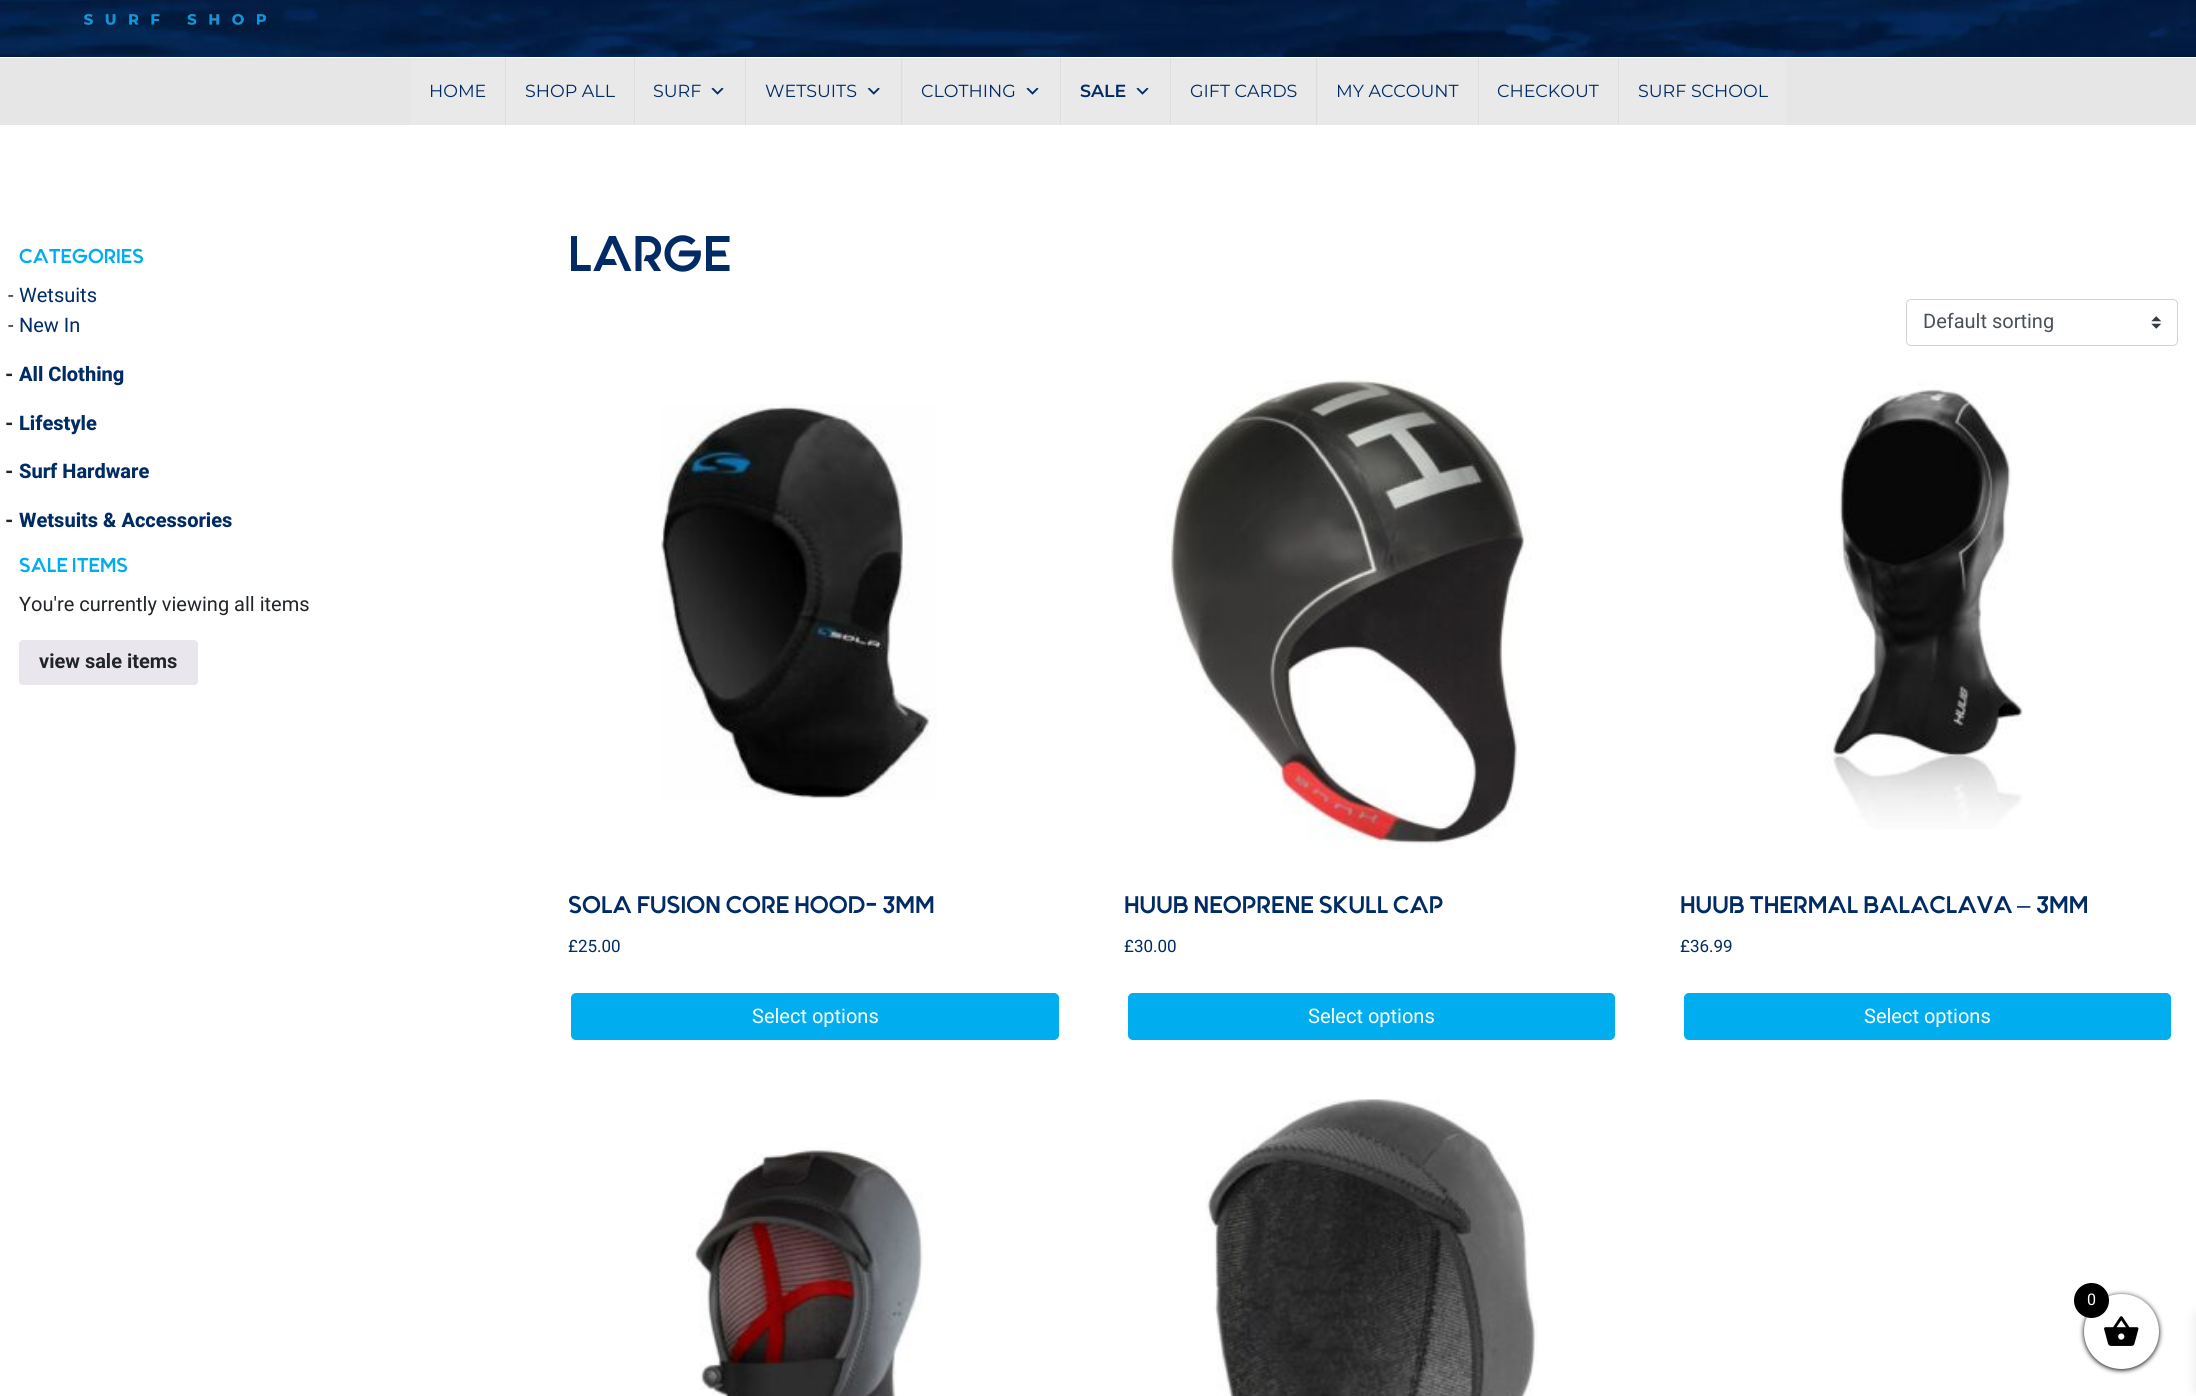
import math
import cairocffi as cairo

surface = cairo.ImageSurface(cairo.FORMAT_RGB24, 2196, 1396)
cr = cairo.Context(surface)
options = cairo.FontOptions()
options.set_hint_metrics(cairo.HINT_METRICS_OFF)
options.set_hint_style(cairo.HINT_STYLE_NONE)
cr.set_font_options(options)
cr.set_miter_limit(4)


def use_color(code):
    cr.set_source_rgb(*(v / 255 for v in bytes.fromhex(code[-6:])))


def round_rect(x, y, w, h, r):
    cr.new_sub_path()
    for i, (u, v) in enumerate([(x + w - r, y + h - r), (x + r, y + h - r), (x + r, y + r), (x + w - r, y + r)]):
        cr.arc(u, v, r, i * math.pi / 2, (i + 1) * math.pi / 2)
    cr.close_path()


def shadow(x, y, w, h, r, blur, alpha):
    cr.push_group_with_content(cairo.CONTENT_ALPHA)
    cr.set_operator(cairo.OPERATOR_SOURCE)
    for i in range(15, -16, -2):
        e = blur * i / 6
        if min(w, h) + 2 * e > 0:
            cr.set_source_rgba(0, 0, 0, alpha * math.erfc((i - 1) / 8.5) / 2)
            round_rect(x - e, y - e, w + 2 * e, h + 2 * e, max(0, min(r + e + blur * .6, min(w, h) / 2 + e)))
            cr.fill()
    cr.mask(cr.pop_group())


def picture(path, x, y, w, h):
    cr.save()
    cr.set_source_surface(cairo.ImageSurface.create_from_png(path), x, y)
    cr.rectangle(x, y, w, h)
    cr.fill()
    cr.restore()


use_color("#ffffff")
cr.paint()
picture("img1.png", 0, 0, 2196, 57)
picture("img2.png", 84, 14, 183, 11)
use_color("#e6e6e6")
cr.rectangle(0, 58, 2196, 67)
cr.fill()
use_color("#e9e9e9")
cr.rectangle(1620, 58, 166, 67)
cr.fill()
cr.rectangle(1480, 58, 138, 67)
cr.fill()
cr.rectangle(1319, 58, 159, 67)
cr.fill()
cr.rectangle(1172, 58, 144, 67)
cr.fill()
cr.rectangle(1062, 58, 108, 67)
cr.fill()
cr.rectangle(904, 58, 156, 67)
cr.fill()
cr.rectangle(747, 58, 154, 67)
cr.fill()
cr.rectangle(636, 58, 109, 67)
cr.fill()
cr.rectangle(507, 58, 127, 67)
cr.fill()
cr.rectangle(410, 58, 95, 67)
cr.fill()
cr.select_font_face("Montserrat")
cr.set_font_size(17.5)
use_color("#002b64")
cr.move_to(429, 97)
cr.show_text("HOME")
use_color("#ebebeb")
cr.rectangle(506, 58, 1, 67)
cr.fill()
use_color("#dddddd")
cr.rectangle(505, 58, 1, 67)
cr.fill()
use_color("#002b64")
cr.move_to(525, 97)
cr.show_text("SHOP ALL")
use_color("#ebebeb")
cr.rectangle(635, 58, 1, 67)
cr.fill()
use_color("#dddddd")
cr.rectangle(634, 58, 1, 67)
cr.fill()
use_color("#002b64")
cr.move_to(653, 97)
cr.show_text("SURF")
picture("img3.png", 711, 87, 13, 8)
use_color("#ebebeb")
cr.rectangle(746, 58, 1, 67)
cr.fill()
use_color("#dddddd")
cr.rectangle(745, 58, 1, 67)
cr.fill()
use_color("#002b64")
cr.move_to(765, 97)
cr.show_text("WETSUITS")
picture("img4.png", 867, 87, 13, 8)
use_color("#ebebeb")
cr.rectangle(903, 58, 1, 67)
cr.fill()
use_color("#dddddd")
cr.rectangle(901, 58, 1, 67)
cr.fill()
use_color("#002b64")
cr.move_to(921, 97)
cr.show_text("CLOTHING")
picture("img3.png", 1026, 87, 13, 8)
use_color("#ebebeb")
cr.rectangle(1061, 58, 1, 67)
cr.fill()
use_color("#dddddd")
cr.rectangle(1060, 58, 1, 67)
cr.fill()
cr.select_font_face("Montserrat SemiBold")
use_color("#002b64")
cr.move_to(1080, 97)
cr.show_text("SALE")
picture("img3.png", 1136, 87, 13, 8)
use_color("#ebebeb")
cr.rectangle(1171, 58, 1, 67)
cr.fill()
use_color("#dddddd")
cr.rectangle(1170, 58, 1, 67)
cr.fill()
cr.select_font_face("Montserrat")
use_color("#002b64")
cr.move_to(1190, 97)
cr.show_text("GIFT CARDS")
use_color("#ebebeb")
cr.rectangle(1318, 58, 1, 67)
cr.fill()
use_color("#dddddd")
cr.rectangle(1316, 58, 1, 67)
cr.fill()
use_color("#002b64")
cr.move_to(1336, 97)
cr.show_text("MY ACCOUNT")
use_color("#ebebeb")
cr.rectangle(1479, 58, 1, 67)
cr.fill()
use_color("#dddddd")
cr.rectangle(1478, 58, 1, 67)
cr.fill()
use_color("#002b64")
cr.move_to(1497, 97)
cr.show_text("CHECKOUT")
use_color("#ebebeb")
cr.rectangle(1619, 58, 1, 67)
cr.fill()
use_color("#dddddd")
cr.rectangle(1618, 58, 1, 67)
cr.fill()
use_color("#002b64")
cr.move_to(1638, 97)
cr.show_text("SURF SCHOOL")
cr.select_font_face("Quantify", cairo.FONT_SLANT_NORMAL, cairo.FONT_WEIGHT_BOLD)
cr.set_font_size(20)
use_color("#00aeef")
cr.move_to(19, 263)
cr.show_text("CATEGORIES")
cr.select_font_face("Roboto")
use_color("#212529")
cr.move_to(8, 302)
cr.show_text("-")
use_color("#002b64")
cr.move_to(19, 302)
cr.show_text("Wetsuits")
use_color("#212529")
cr.move_to(8, 332)
cr.show_text("-")
use_color("#002b64")
cr.move_to(19, 332)
cr.show_text("New In")
cr.select_font_face("Roboto ExtraBold")
use_color("#212529")
cr.move_to(5, 381)
cr.show_text("-")
use_color("#002b64")
cr.move_to(19, 381)
cr.show_text("All Clothing")
use_color("#212529")
cr.move_to(5, 430)
cr.show_text("-")
use_color("#002b64")
cr.move_to(19, 430)
cr.show_text("Lifestyle")
use_color("#212529")
cr.move_to(5, 478)
cr.show_text("-")
use_color("#002b64")
cr.move_to(19, 478)
cr.show_text("Surf Hardware")
use_color("#212529")
cr.move_to(5, 527)
cr.show_text("-")
use_color("#002b64")
cr.move_to(19, 527)
cr.show_text("Wetsuits & Accessories")
cr.select_font_face("Quantify", cairo.FONT_SLANT_NORMAL, cairo.FONT_WEIGHT_BOLD)
use_color("#00aeef")
cr.move_to(19, 572)
cr.show_text("SALE ITEMS")
cr.select_font_face("Roboto")
use_color("#212529")
cr.move_to(19, 611)
cr.show_text("You're currently viewing all items")
use_color("#e9e6ed")
round_rect(19, 640, 179, 45, 4)
cr.fill()
cr.select_font_face("Roboto", cairo.FONT_SLANT_NORMAL, cairo.FONT_WEIGHT_BOLD)
use_color("#212529")
cr.move_to(39, 668)
cr.show_text("view sale items")
cr.select_font_face("Quantify", cairo.FONT_SLANT_NORMAL, cairo.FONT_WEIGHT_BOLD)
cr.set_font_size(50)
use_color("#002b64")
cr.move_to(568, 271)
cr.show_text("LARGE")
picture("img5.png", 2151, 316, 10, 13)
round_rect(1906.5, 299.5, 271, 46, 4.5)
use_color("#ced4da")
cr.set_line_width(1)
cr.stroke()
cr.select_font_face("Roboto")
cr.set_font_size(20)
use_color("#495057")
cr.move_to(1923, 328)
cr.show_text("Default sorting")
picture("img6.png", 660, 404, 277, 396)
cr.select_font_face("Quantify", cairo.FONT_SLANT_NORMAL, cairo.FONT_WEIGHT_BOLD)
cr.set_font_size(24)
use_color("#002b64")
cr.move_to(568, 913)
cr.show_text("SOLA FUSION CORE HOOD- 3MM")
cr.select_font_face("Roboto")
cr.set_font_size(17)
cr.move_to(568, 952)
cr.show_text("£25.00")
use_color("#00aeef")
round_rect(571.5, 993.5, 487, 46, 4.5)
cr.fill_preserve()
cr.stroke()
cr.set_font_size(20)
use_color("#ffffff")
cr.move_to(752, 1023)
cr.show_text("Select options")
picture("img7.png", 1165, 379, 366, 470)
cr.select_font_face("Quantify", cairo.FONT_SLANT_NORMAL, cairo.FONT_WEIGHT_BOLD)
cr.set_font_size(24)
use_color("#002b64")
cr.move_to(1124, 913)
cr.show_text("HUUB NEOPRENE SKULL CAP")
cr.select_font_face("Roboto")
cr.set_font_size(17)
cr.move_to(1124, 952)
cr.show_text("£30.00")
use_color("#00aeef")
round_rect(1128.5, 993.5, 486, 46, 4.5)
cr.fill_preserve()
cr.stroke()
cr.set_font_size(20)
use_color("#ffffff")
cr.move_to(1308, 1023)
cr.show_text("Select options")
picture("img8.png", 1825, 381, 198, 448)
cr.select_font_face("Quantify", cairo.FONT_SLANT_NORMAL, cairo.FONT_WEIGHT_BOLD)
cr.set_font_size(24)
use_color("#002b64")
cr.move_to(1680, 913)
cr.show_text("HUUB THERMAL BALACLAVA")
cr.select_font_face("Liberation Sans")
cr.move_to(2017, 913)
cr.show_text("–")
cr.select_font_face("Quantify", cairo.FONT_SLANT_NORMAL, cairo.FONT_WEIGHT_BOLD)
cr.move_to(2036, 913)
cr.show_text("3MM")
cr.select_font_face("Roboto")
cr.set_font_size(17)
cr.move_to(1680, 952)
cr.show_text("£36.99")
use_color("#00aeef")
round_rect(1684.5, 993.5, 486, 46, 4.5)
cr.fill_preserve()
cr.stroke()
cr.set_font_size(20)
use_color("#ffffff")
cr.move_to(1864, 1023)
cr.show_text("Select options")
picture("img9.png", 688, 1143, 236, 253)
picture("img10.png", 1205, 1099, 333, 297)
use_color("#000000")
shadow(2084, 1295, 75, 75, 37.5, 2.5, 1)
use_color("#ffffff")
cr.arc(2121.5, 1331.5, 37.5, 0, 2 * math.pi)
cr.fill()
picture("img11.png", 2104, 1316, 35, 30)
use_color("#000000")
cr.arc(2091.5, 1300.5, 17.5, 0, 2 * math.pi)
cr.fill()
cr.set_font_size(16)
use_color("#ffffff")
cr.move_to(2087, 1305)
cr.show_text("0")
use_color("#000000")
shadow(2196, 1315, 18, 75, 0, 6, 0.1)
surface.write_to_png("result.png")
